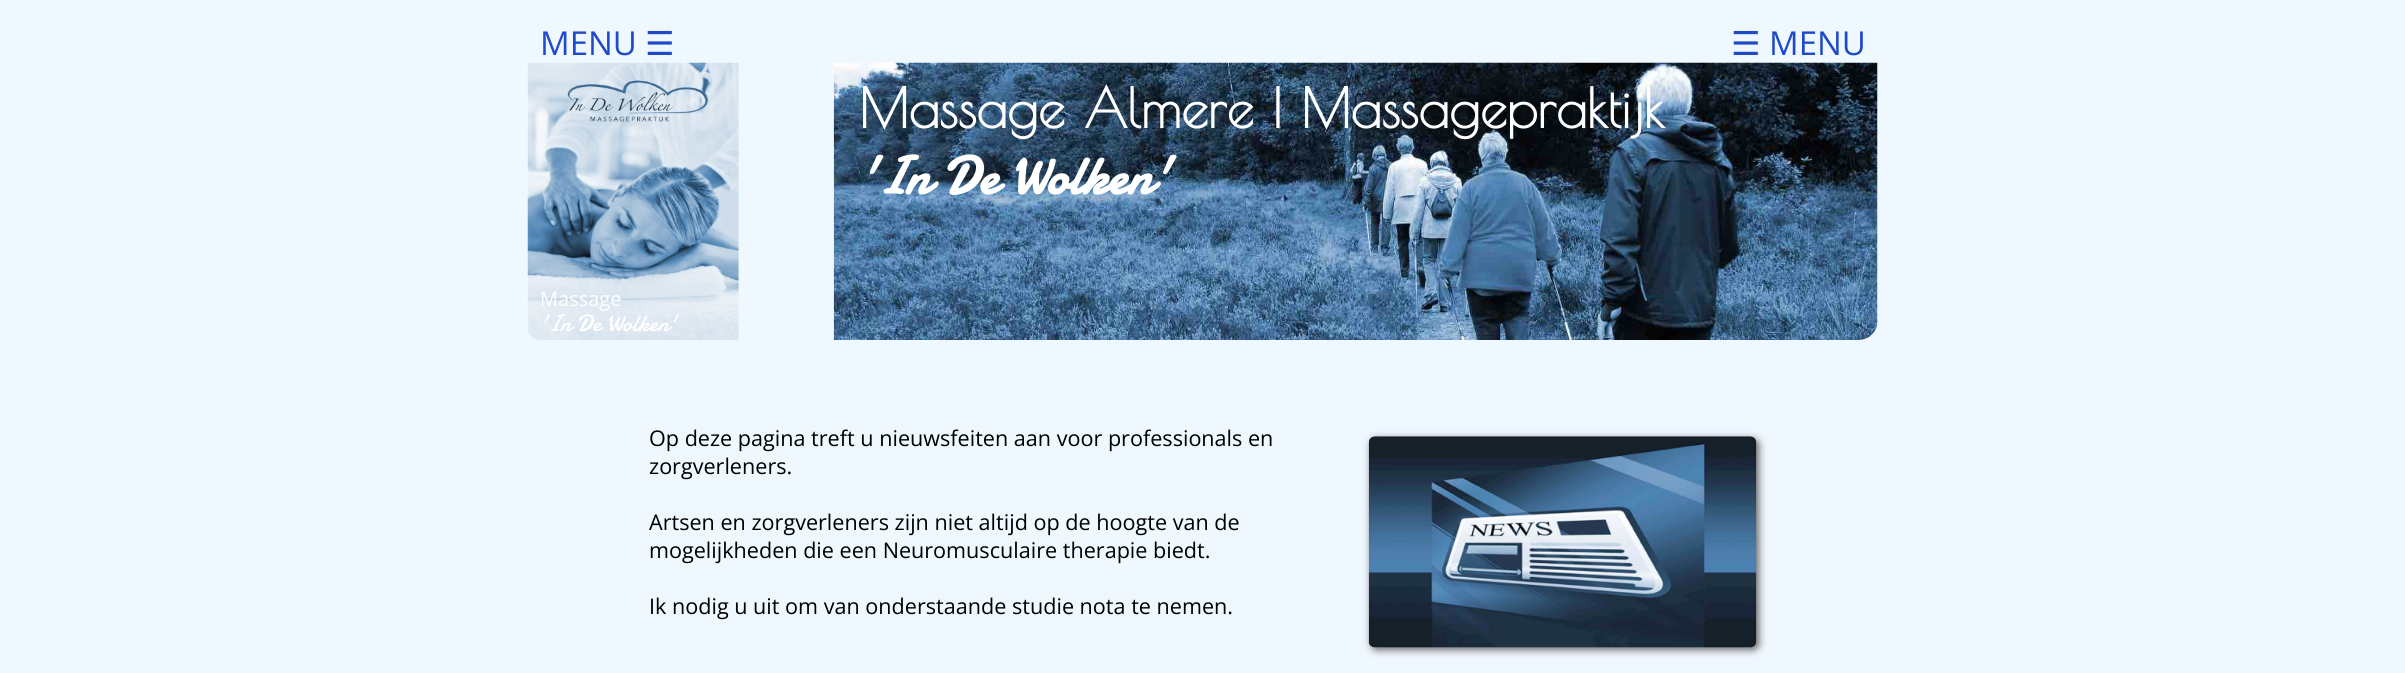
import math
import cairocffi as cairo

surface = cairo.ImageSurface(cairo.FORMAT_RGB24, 2405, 673)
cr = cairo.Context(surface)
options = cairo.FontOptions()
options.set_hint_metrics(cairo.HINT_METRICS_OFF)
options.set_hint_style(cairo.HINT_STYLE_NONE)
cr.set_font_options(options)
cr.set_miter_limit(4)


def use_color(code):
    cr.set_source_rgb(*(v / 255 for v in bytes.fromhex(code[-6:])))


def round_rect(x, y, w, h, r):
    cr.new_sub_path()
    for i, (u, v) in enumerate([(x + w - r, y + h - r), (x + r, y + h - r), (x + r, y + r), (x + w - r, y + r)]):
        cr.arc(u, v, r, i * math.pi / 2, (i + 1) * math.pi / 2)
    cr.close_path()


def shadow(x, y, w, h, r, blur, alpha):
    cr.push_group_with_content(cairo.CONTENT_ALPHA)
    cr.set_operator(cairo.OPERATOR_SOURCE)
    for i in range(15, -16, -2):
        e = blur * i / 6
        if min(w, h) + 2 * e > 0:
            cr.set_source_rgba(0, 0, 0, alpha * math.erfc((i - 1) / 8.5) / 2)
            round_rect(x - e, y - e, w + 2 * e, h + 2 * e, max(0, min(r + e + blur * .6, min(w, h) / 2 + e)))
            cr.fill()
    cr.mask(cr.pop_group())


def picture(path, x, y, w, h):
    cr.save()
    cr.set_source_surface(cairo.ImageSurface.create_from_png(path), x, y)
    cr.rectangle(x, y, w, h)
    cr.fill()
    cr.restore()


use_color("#f0f8ff")
cr.paint()
cr.select_font_face("Open Sans")
cr.set_font_size(33)
use_color("#204ac8")
cr.move_to(540, 55)
cr.show_text("MENU")
cr.select_font_face("DejaVu Sans")
cr.move_to(645, 55)
cr.show_text("☰")
cr.move_to(1731, 55)
cr.show_text("☰")
cr.select_font_face("Open Sans")
cr.move_to(1769, 55)
cr.show_text("MENU")
picture("img1.png", 833, 62, 1045, 278)
cr.select_font_face("Poiret One", cairo.FONT_SLANT_NORMAL, cairo.FONT_WEIGHT_BOLD)
cr.set_font_size(54)
use_color("#ffffff")
cr.move_to(859, 128)
cr.show_text("Massage Almere | Massagepraktijk")
cr.select_font_face("Damion", cairo.FONT_SLANT_NORMAL, cairo.FONT_WEIGHT_BOLD)
cr.move_to(859, 194)
cr.show_text("'In De Wolken'")
picture("img2.png", 527, 62, 212, 278)
cr.select_font_face("Open Sans")
cr.set_font_size(20)
cr.move_to(540, 306)
cr.show_text("Massage")
cr.select_font_face("Damion")
cr.set_font_size(23.75)
cr.move_to(540, 331)
cr.show_text("'In De Wolken'")
cr.select_font_face("Open Sans")
cr.set_font_size(21.6)
use_color("#000000")
cr.move_to(649, 446)
cr.show_text("Op deze pagina treft u nieuwsfeiten aan voor professionals en")
use_color("#696969")
shadow(1371, 439, 388, 211, 6, 4, 1)
picture("img3.png", 1368, 436, 389, 212)
use_color("#000000")
cr.move_to(649, 474)
cr.show_text("zorgverleners.")
cr.move_to(649, 530)
cr.show_text("Artsen en zorgverleners zijn niet altijd op de hoogte van de")
cr.move_to(649, 558)
cr.show_text("mogelijkheden die een Neuromusculaire therapie biedt.")
cr.move_to(649, 614)
cr.show_text("Ik nodig u uit om van onderstaande studie nota te nemen.")
surface.write_to_png("result.png")
